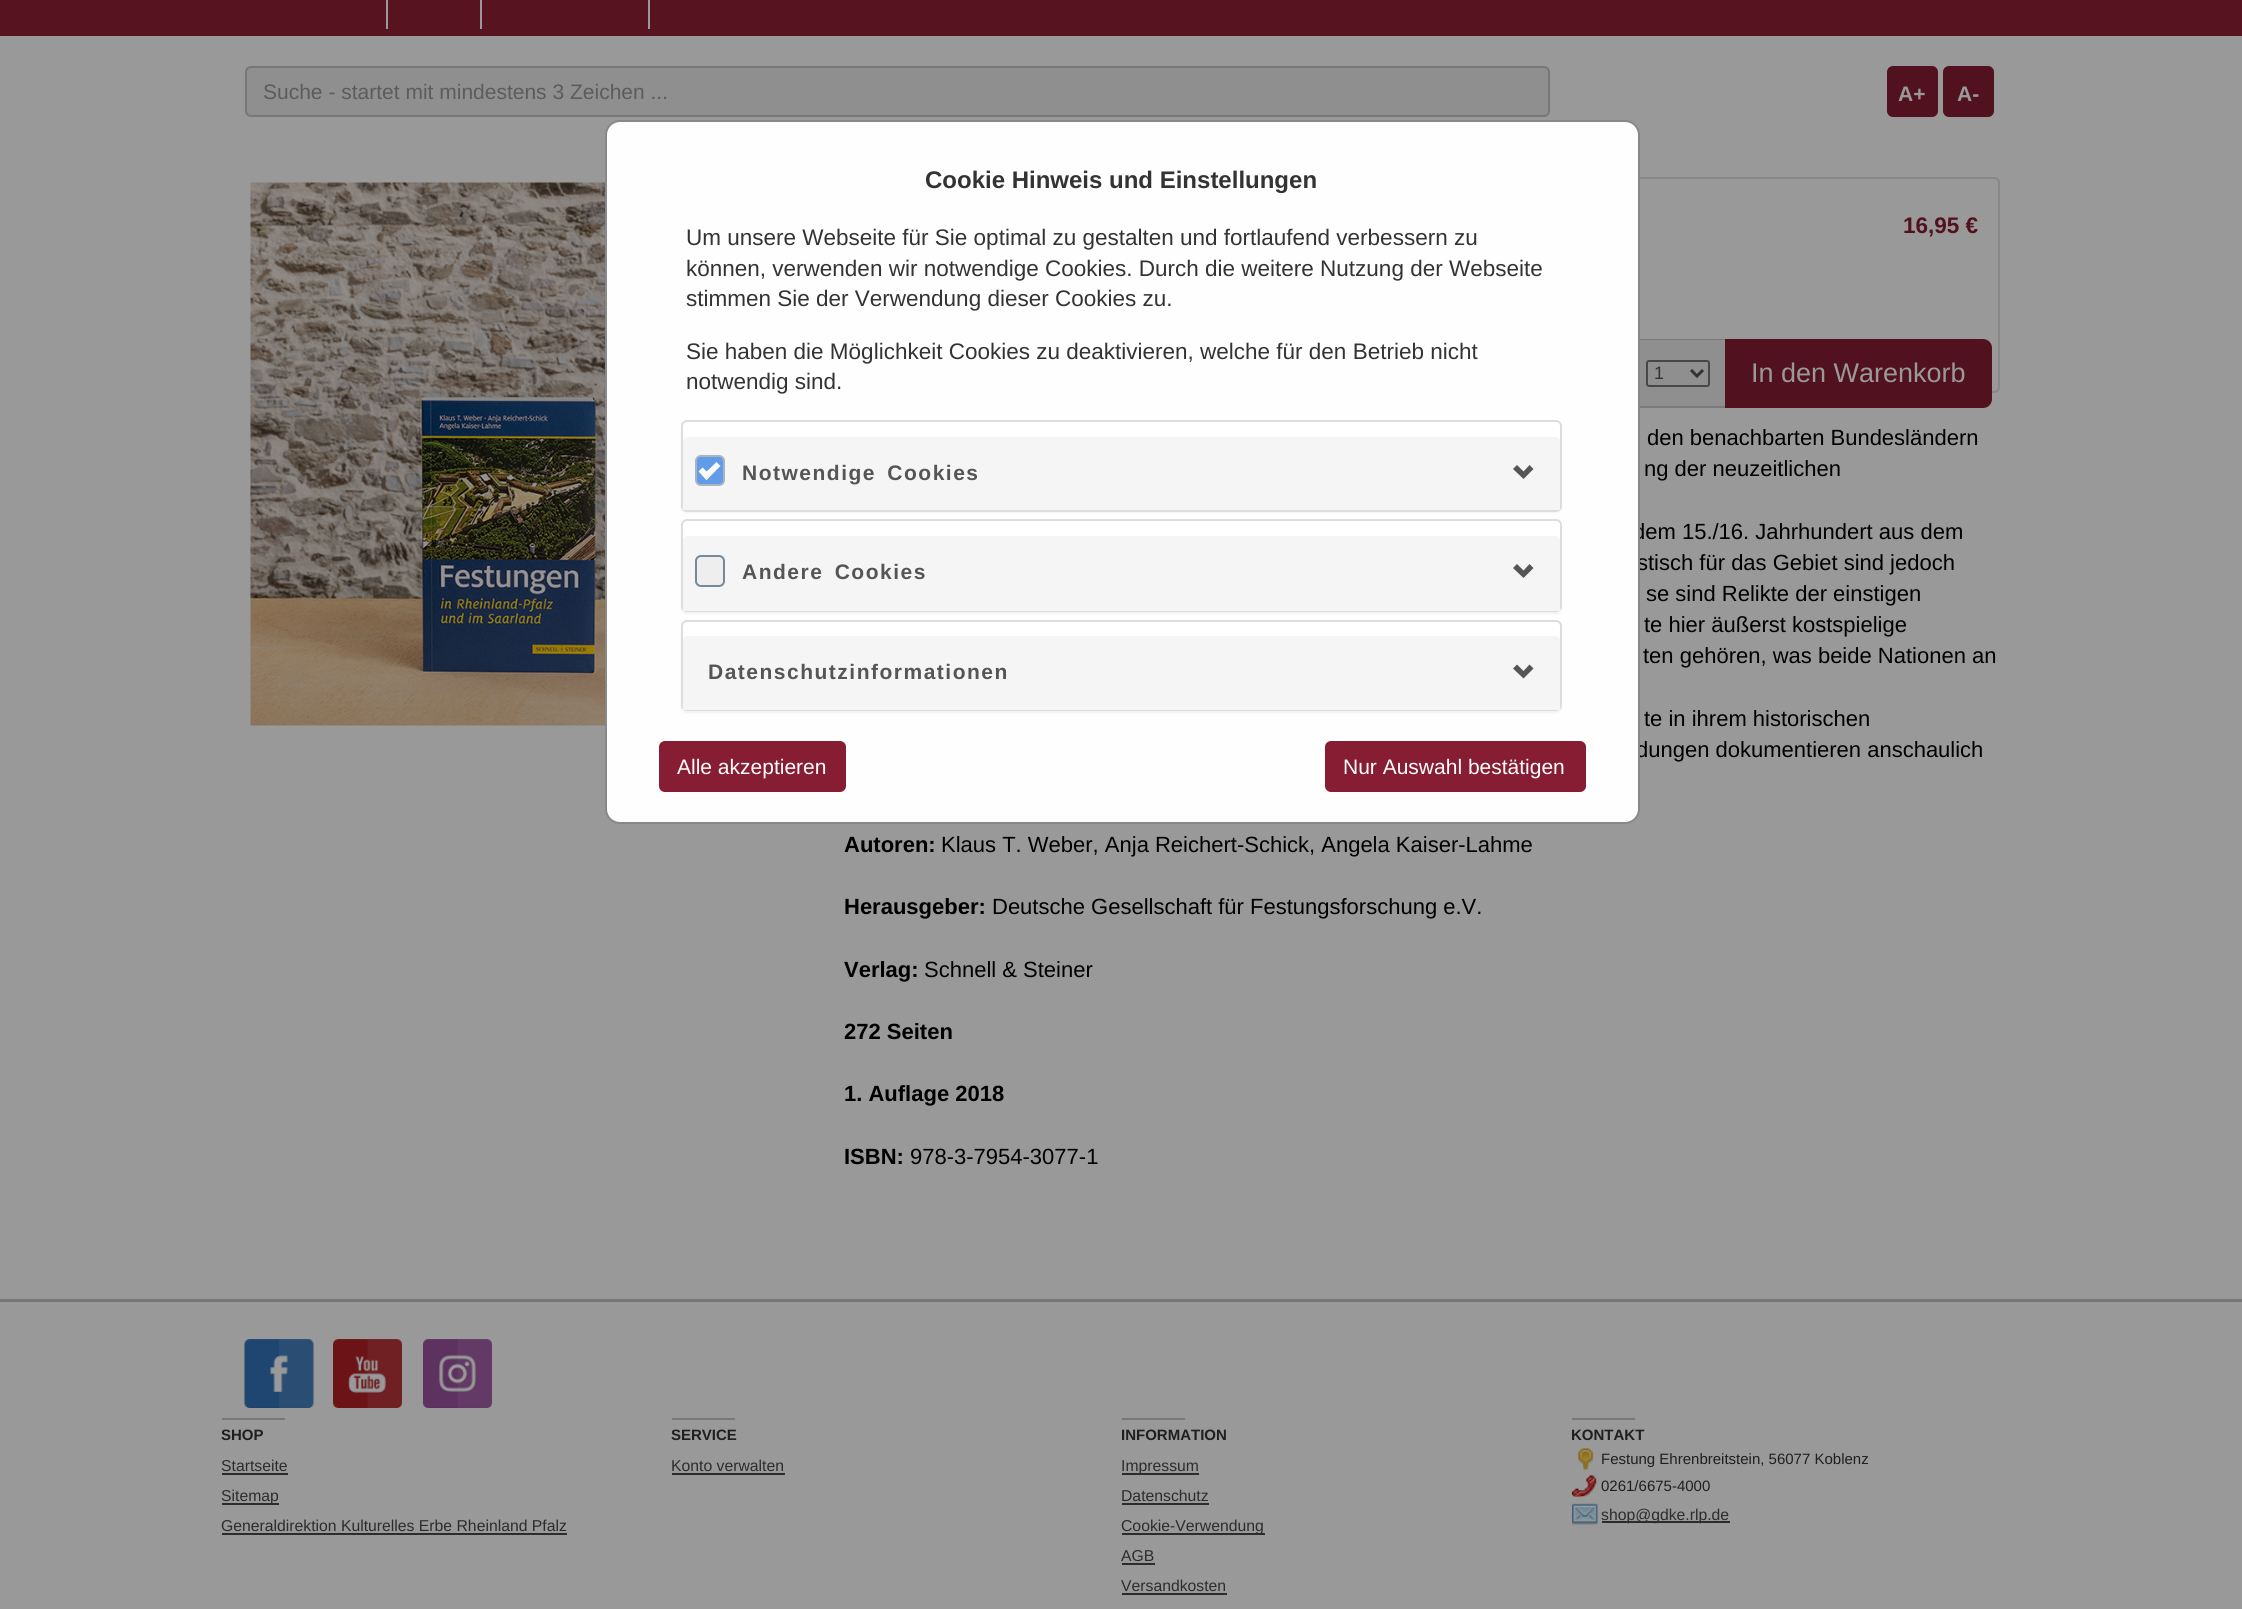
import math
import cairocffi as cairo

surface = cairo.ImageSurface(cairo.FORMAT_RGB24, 2242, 1609)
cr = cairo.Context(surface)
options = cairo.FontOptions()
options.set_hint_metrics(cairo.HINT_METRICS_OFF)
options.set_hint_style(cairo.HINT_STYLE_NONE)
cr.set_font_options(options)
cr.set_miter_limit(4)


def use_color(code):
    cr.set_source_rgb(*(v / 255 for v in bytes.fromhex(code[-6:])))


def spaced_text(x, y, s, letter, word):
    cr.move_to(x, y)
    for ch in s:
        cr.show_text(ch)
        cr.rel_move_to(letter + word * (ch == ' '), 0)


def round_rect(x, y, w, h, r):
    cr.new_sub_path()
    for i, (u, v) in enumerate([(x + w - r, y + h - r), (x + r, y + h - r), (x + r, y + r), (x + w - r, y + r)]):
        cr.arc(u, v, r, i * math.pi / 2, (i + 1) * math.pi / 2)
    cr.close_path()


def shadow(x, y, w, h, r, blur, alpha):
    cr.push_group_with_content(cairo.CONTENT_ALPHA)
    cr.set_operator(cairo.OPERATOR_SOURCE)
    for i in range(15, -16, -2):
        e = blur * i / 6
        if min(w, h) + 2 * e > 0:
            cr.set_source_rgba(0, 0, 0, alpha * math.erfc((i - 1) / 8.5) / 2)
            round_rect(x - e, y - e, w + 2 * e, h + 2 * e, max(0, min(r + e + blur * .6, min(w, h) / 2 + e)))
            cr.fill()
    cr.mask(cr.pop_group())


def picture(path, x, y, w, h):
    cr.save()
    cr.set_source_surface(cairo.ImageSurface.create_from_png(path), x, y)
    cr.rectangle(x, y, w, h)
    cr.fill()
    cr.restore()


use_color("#999999")
cr.paint()
use_color("#581321")
cr.rectangle(0, 0, 2242, 36)
cr.fill()
use_color("#999999")
cr.rectangle(386, 0, 2, 29)
cr.fill()
cr.rectangle(480, 0, 2, 29)
cr.fill()
cr.rectangle(648, 0, 2, 29)
cr.fill()
use_color("#8f8f8f")
round_rect(246, 67, 1303, 49, 5)
cr.fill_preserve()
use_color("#777777")
cr.stroke()
cr.select_font_face("Liberation Sans")
cr.set_font_size(21)
use_color("#5c5c5c")
cr.move_to(263, 99)
cr.show_text("Suche - startet mit mindestens 3 Zeichen ...")
use_color("#51111f")
round_rect(1888, 67, 49, 49, 5)
cr.fill_preserve()
cr.stroke()
cr.select_font_face("Liberation Sans", cairo.FONT_SLANT_NORMAL, cairo.FONT_WEIGHT_BOLD)
use_color("#999999")
cr.move_to(1898, 101)
cr.show_text("A+")
use_color("#51111f")
round_rect(1944, 67, 49, 49, 5)
cr.fill_preserve()
cr.stroke()
use_color("#999999")
cr.move_to(1957, 101)
cr.show_text("A-")
round_rect(846, 178, 1153, 214, 5)
use_color("#888888")
cr.stroke()
use_color("#8f8f8f")
cr.rectangle(1640, 340, 85, 66)
cr.fill()
use_color("#7a7a7a")
cr.set_fill_rule(cairo.FILL_RULE_EVEN_ODD)
cr.new_path()
cr.move_to(1634, 339)
cr.line_to(1725, 339)
cr.line_to(1725, 408)
cr.line_to(1634, 408)
cr.curve_to(1631, 408, 1629, 406, 1629, 404)
cr.line_to(1629, 344)
cr.curve_to(1629, 341, 1631, 339, 1634, 339)
cr.close_path()
cr.move_to(1634, 340)
cr.line_to(1725, 340)
cr.line_to(1725, 406)
cr.line_to(1634, 406)
cr.curve_to(1632, 406, 1630, 405, 1630, 404)
cr.line_to(1630, 344)
cr.curve_to(1630, 342, 1632, 340, 1634, 340)
cr.close_path()
cr.fill()
cr.select_font_face("Liberation Sans")
cr.set_font_size(22)
use_color("#000000")
cr.move_to(1633, 539)
cr.show_text("dem 15./16. Jahrhundert aus dem")
cr.move_to(1637, 570)
cr.show_text("stisch für das Gebiet sind jedoch")
cr.move_to(1636, 757)
cr.show_text("dungen dokumentieren anschaulich")
use_color("#fefefe")
round_rect(606, 121, 1033, 702, 14)
cr.fill_preserve()
use_color("#888888")
cr.stroke()
cr.select_font_face("Liberation Sans", cairo.FONT_SLANT_NORMAL, cairo.FONT_WEIGHT_BOLD)
cr.set_font_size(24)
use_color("#333333")
cr.move_to(925, 188)
cr.show_text("Cookie Hinweis und Einstellungen")
cr.select_font_face("Liberation Sans")
cr.set_font_size(22.5)
cr.move_to(686, 245)
cr.show_text("Um unsere Webseite für Sie optimal zu gestalten und fortlaufend verbessern zu")
cr.move_to(686, 276)
cr.show_text("können, verwenden wir notwendige Cookies. Durch die weitere Nutzung der Webseite")
cr.move_to(686, 306)
cr.show_text("stimmen Sie der Verwendung dieser Cookies zu.")
cr.move_to(686, 359)
cr.show_text("Sie haben die Möglichkeit Cookies zu deaktivieren, welche für den Betrieb nicht")
cr.move_to(686, 389)
cr.show_text("notwendig sind.")
use_color("#000000")
shadow(681, 422, 881, 91, 6, 1, 0.05)
use_color("#ffffff")
round_rect(682, 421, 879, 90, 5)
cr.fill_preserve()
use_color("#dddddd")
cr.stroke()
use_color("#f5f5f5")
cr.new_path()
cr.move_to(688, 437)
cr.line_to(1555, 437)
cr.curve_to(1558, 437, 1560, 439, 1560, 442)
cr.line_to(1560, 510)
cr.line_to(683, 510)
cr.line_to(683, 442)
cr.curve_to(683, 439, 685, 437, 688, 437)
cr.close_path()
cr.fill()
use_color("#629ce8")
round_rect(696, 456, 28, 29, 5)
cr.fill_preserve()
use_color("#a9b4be")
cr.stroke()
use_color("#fbfbfb")
cr.set_fill_rule(cairo.FILL_RULE_WINDING)
cr.new_path()
cr.move_to(716.5, 462)
cr.line_to(720.5, 466)
cr.line_to(706.5, 480)
cr.line_to(702.5, 475.5)
cr.close_path()
cr.fill()
cr.new_path()
cr.move_to(702.5, 467.5)
cr.line_to(711, 475.5)
cr.line_to(706.5, 480)
cr.line_to(698.5, 471.5)
cr.close_path()
cr.fill()
cr.select_font_face("Liberation Sans", cairo.FONT_SLANT_NORMAL, cairo.FONT_WEIGHT_BOLD)
cr.set_font_size(21)
use_color("#555555")
spaced_text(742, 480, "Notwendige Cookies", 1.5, 4)
cr.new_path()
cr.move_to(1513, 469)
cr.line_to(1523.5, 479)
cr.line_to(1533.5, 469)
cr.line_to(1529.5, 465)
cr.line_to(1523.5, 471.5)
cr.line_to(1517, 465)
cr.close_path()
cr.fill()
use_color("#000000")
shadow(681, 521, 881, 93, 6, 1, 0.05)
use_color("#ffffff")
round_rect(682, 520, 879, 91, 5)
cr.fill_preserve()
use_color("#dddddd")
cr.stroke()
use_color("#f5f5f5")
cr.new_path()
cr.move_to(688, 536)
cr.line_to(1555, 536)
cr.curve_to(1558, 536, 1560, 538, 1560, 541)
cr.line_to(1560, 611)
cr.line_to(683, 611)
cr.line_to(683, 541)
cr.curve_to(683, 538, 685, 536, 688, 536)
cr.close_path()
cr.fill()
use_color("#eeeeee")
round_rect(696, 556, 28, 30, 5)
cr.fill_preserve()
use_color("#778899")
cr.stroke()
use_color("#555555")
spaced_text(742, 579, "Andere Cookies", 1.5, 4)
cr.new_path()
cr.move_to(1513, 568)
cr.line_to(1523.5, 578)
cr.line_to(1533.5, 568)
cr.line_to(1529.5, 564)
cr.line_to(1523.5, 570.5)
cr.line_to(1517, 564)
cr.close_path()
cr.fill()
use_color("#000000")
shadow(681, 621, 881, 92, 6, 1, 0.05)
use_color("#ffffff")
round_rect(682, 621, 879, 89, 5)
cr.fill_preserve()
use_color("#dddddd")
cr.stroke()
use_color("#f5f5f5")
cr.new_path()
cr.move_to(688, 636)
cr.line_to(1555, 636)
cr.curve_to(1558, 636, 1560, 638, 1560, 641)
cr.line_to(1560, 710)
cr.line_to(683, 710)
cr.line_to(683, 641)
cr.curve_to(683, 638, 685, 636, 688, 636)
cr.close_path()
cr.fill()
use_color("#555555")
spaced_text(708, 679, "Datenschutzinformationen", 1.5, 0)
cr.new_path()
cr.move_to(1513, 668.5)
cr.line_to(1523.5, 678.5)
cr.line_to(1533.5, 668.5)
cr.line_to(1529.5, 664.5)
cr.line_to(1523.5, 671)
cr.line_to(1517, 664.5)
cr.close_path()
cr.fill()
use_color("#871d33")
round_rect(660, 742, 185, 49, 5)
cr.fill_preserve()
cr.stroke()
cr.select_font_face("Liberation Sans")
use_color("#ffffff")
cr.move_to(677, 774)
cr.show_text("Alle akzeptieren")
use_color("#871d33")
round_rect(1326, 742, 259, 49, 5)
cr.fill_preserve()
cr.stroke()
use_color("#ffffff")
cr.move_to(1343, 774)
cr.show_text("Nur Auswahl bestätigen")
picture("img1.png", 250, 182, 355, 544)
cr.select_font_face("Liberation Sans", cairo.FONT_SLANT_NORMAL, cairo.FONT_WEIGHT_BOLD)
cr.set_font_size(22.5)
use_color("#51111f")
cr.move_to(1903, 233)
cr.show_text("16,95 €")
round_rect(1647, 361, 62, 25, 2)
use_color("#474747")
cr.stroke()
cr.new_path()
cr.move_to(1691, 370)
cr.line_to(1697, 376)
cr.line_to(1703, 370)
use_color("#333333")
cr.set_line_width(3)
cr.stroke()
cr.select_font_face("Liberation Sans")
cr.set_font_size(18)
cr.move_to(1654, 379)
cr.show_text("1")
use_color("#51111f")
cr.new_path()
cr.move_to(1726, 340)
cr.line_to(1983, 340)
cr.curve_to(1987.5, 340, 1991, 343.5, 1991, 348)
cr.line_to(1991, 399)
cr.curve_to(1991, 403.5, 1987.5, 407, 1983, 407)
cr.line_to(1726, 407)
cr.close_path()
cr.fill_preserve()
cr.set_line_width(2)
cr.stroke()
cr.set_font_size(27)
use_color("#999999")
cr.move_to(1751, 382)
cr.show_text("In den Warenkorb")
cr.set_font_size(22)
use_color("#000000")
cr.move_to(1647, 445)
cr.show_text("den benachbarten Bundesländern")
cr.move_to(1644, 476)
cr.show_text("ng der neuzeitlichen")
cr.move_to(1646, 601)
cr.show_text("se sind Relikte der einstigen")
cr.move_to(1644, 632)
cr.show_text("te hier äußerst kostspielige")
cr.move_to(1643, 663)
cr.show_text("ten gehören, was beide Nationen an")
cr.move_to(1644, 726)
cr.show_text("te in ihrem historischen")
cr.select_font_face("Liberation Sans", cairo.FONT_SLANT_NORMAL, cairo.FONT_WEIGHT_BOLD)
cr.move_to(844, 852)
cr.show_text("Autoren:")
cr.select_font_face("Liberation Sans")
cr.move_to(941, 852)
cr.show_text("Klaus T. Weber, Anja Reichert-Schick, Angela Kaiser-Lahme")
cr.select_font_face("Liberation Sans", cairo.FONT_SLANT_NORMAL, cairo.FONT_WEIGHT_BOLD)
cr.move_to(844, 914)
cr.show_text("Herausgeber:")
cr.select_font_face("Liberation Sans")
cr.move_to(992, 914)
cr.show_text("Deutsche Gesellschaft für Festungsforschung e.V.")
cr.select_font_face("Liberation Sans", cairo.FONT_SLANT_NORMAL, cairo.FONT_WEIGHT_BOLD)
cr.move_to(844, 977)
cr.show_text("Verlag:")
cr.select_font_face("Liberation Sans")
cr.move_to(924, 977)
cr.show_text("Schnell & Steiner")
cr.select_font_face("Liberation Sans", cairo.FONT_SLANT_NORMAL, cairo.FONT_WEIGHT_BOLD)
cr.move_to(844, 1039)
cr.show_text("272 Seiten")
cr.move_to(844, 1101)
cr.show_text("1. Auflage 2018")
cr.move_to(844, 1164)
cr.show_text("ISBN:")
cr.select_font_face("Liberation Sans")
cr.move_to(910, 1164)
cr.show_text("978-3-7954-3077-1")
use_color("#777777")
cr.rectangle(0, 1299, 2242, 3)
cr.fill()
picture("img2.png", 244, 1339, 70, 69)
picture("img3.png", 333, 1339, 69, 69)
picture("img4.png", 423, 1339, 69, 69)
cr.rectangle(222, 1418, 63, 2)
cr.fill()
cr.select_font_face("Liberation Sans", cairo.FONT_SLANT_NORMAL, cairo.FONT_WEIGHT_BOLD)
cr.set_font_size(15)
use_color("#1f1f1f")
cr.move_to(221, 1440)
cr.show_text("SHOP")
cr.select_font_face("Liberation Sans")
cr.set_font_size(15.75)
use_color("#2c2c2c")
cr.move_to(221, 1471)
cr.show_text("Startseite")
cr.rectangle(222, 1473, 66, 2)
cr.fill()
cr.rectangle(222, 1503, 57, 2)
cr.fill()
cr.move_to(221, 1501)
cr.show_text("Sitemap")
cr.move_to(221, 1531)
cr.show_text("Generaldirektion Kulturelles Erbe Rheinland Pfalz")
cr.rectangle(222, 1533, 345, 2)
cr.fill()
use_color("#777777")
cr.rectangle(672, 1418, 63, 2)
cr.fill()
cr.select_font_face("Liberation Sans", cairo.FONT_SLANT_NORMAL, cairo.FONT_WEIGHT_BOLD)
cr.set_font_size(15)
use_color("#1f1f1f")
cr.move_to(671, 1440)
cr.show_text("SERVICE")
cr.select_font_face("Liberation Sans")
cr.set_font_size(15.75)
use_color("#2c2c2c")
cr.move_to(671, 1471)
cr.show_text("Konto verwalten")
cr.rectangle(672, 1473, 113, 2)
cr.fill()
use_color("#777777")
cr.rectangle(1122, 1418, 63, 2)
cr.fill()
cr.select_font_face("Liberation Sans", cairo.FONT_SLANT_NORMAL, cairo.FONT_WEIGHT_BOLD)
cr.set_font_size(15)
use_color("#1f1f1f")
cr.move_to(1121, 1440)
cr.show_text("INFORMATION")
use_color("#2c2c2c")
cr.rectangle(1122, 1473, 77, 2)
cr.fill()
cr.select_font_face("Liberation Sans")
cr.set_font_size(15.75)
cr.move_to(1121, 1471)
cr.show_text("Impressum")
cr.move_to(1121, 1501)
cr.show_text("Datenschutz")
cr.rectangle(1122, 1503, 87, 2)
cr.fill()
cr.rectangle(1122, 1533, 143, 2)
cr.fill()
cr.move_to(1121, 1531)
cr.show_text("Cookie-Verwendung")
cr.move_to(1121, 1561)
cr.show_text("AGB")
cr.rectangle(1122, 1563, 33, 2)
cr.fill()
cr.move_to(1121, 1591)
cr.show_text("Versandkosten")
cr.rectangle(1122, 1593, 105, 2)
cr.fill()
use_color("#777777")
cr.rectangle(1572, 1418, 63, 2)
cr.fill()
cr.select_font_face("Liberation Sans", cairo.FONT_SLANT_NORMAL, cairo.FONT_WEIGHT_BOLD)
cr.set_font_size(15)
use_color("#1f1f1f")
cr.move_to(1571, 1440)
cr.show_text("KONTAKT")
picture("img5.png", 1578, 1448, 16, 22)
cr.select_font_face("Liberation Sans")
cr.move_to(1601, 1464)
cr.show_text("Festung Ehrenbreitstein, 56077 Koblenz")
picture("img6.png", 1572, 1475, 25, 22)
cr.move_to(1601, 1491)
cr.show_text("0261/6675-4000")
picture("img7.png", 1572, 1503, 26, 22)
use_color("#2c2c2c")
cr.rectangle(1602, 1521, 128, 2)
cr.fill()
cr.set_font_size(15.75)
cr.move_to(1601, 1520)
cr.show_text("shop@gdke.rlp.de")
surface.write_to_png("result.png")
